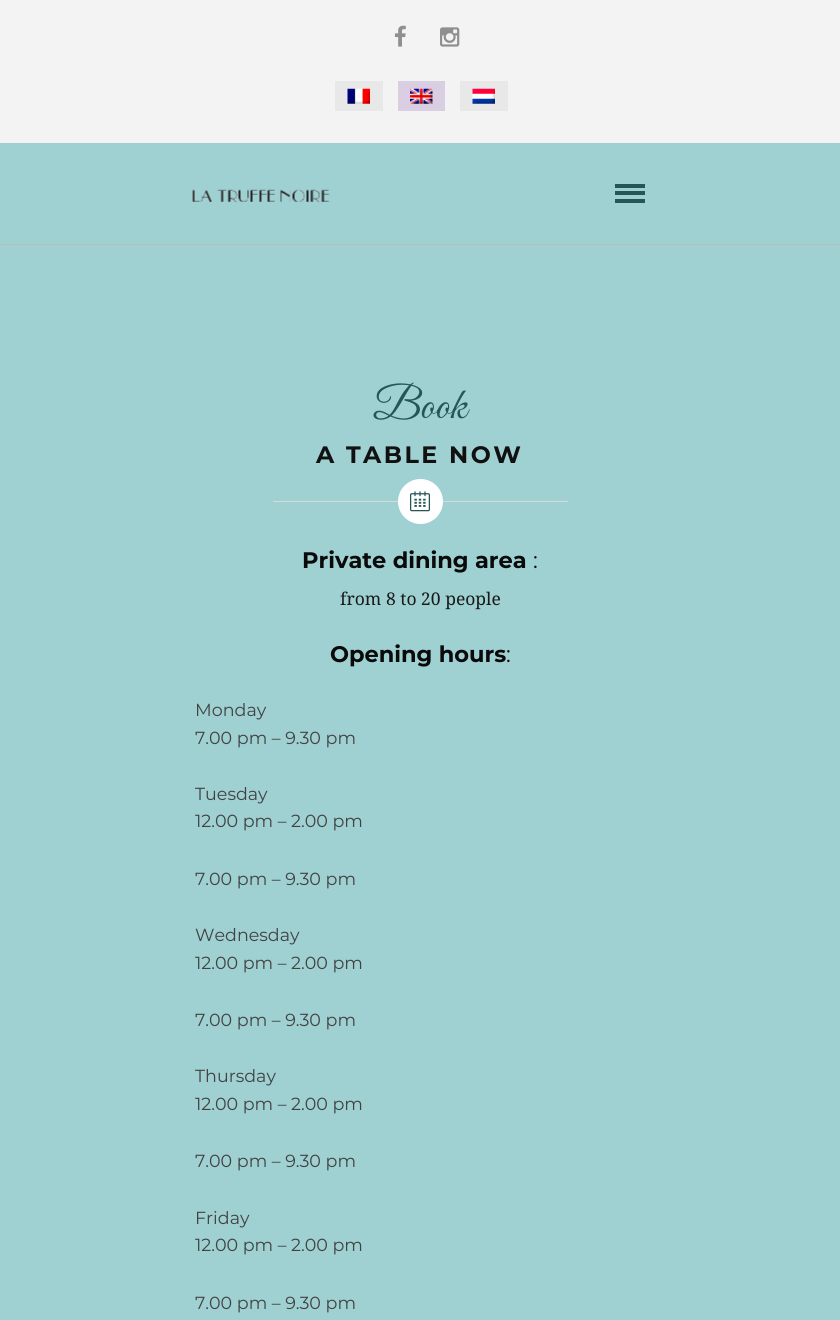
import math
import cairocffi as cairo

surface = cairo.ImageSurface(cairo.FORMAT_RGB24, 840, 1320)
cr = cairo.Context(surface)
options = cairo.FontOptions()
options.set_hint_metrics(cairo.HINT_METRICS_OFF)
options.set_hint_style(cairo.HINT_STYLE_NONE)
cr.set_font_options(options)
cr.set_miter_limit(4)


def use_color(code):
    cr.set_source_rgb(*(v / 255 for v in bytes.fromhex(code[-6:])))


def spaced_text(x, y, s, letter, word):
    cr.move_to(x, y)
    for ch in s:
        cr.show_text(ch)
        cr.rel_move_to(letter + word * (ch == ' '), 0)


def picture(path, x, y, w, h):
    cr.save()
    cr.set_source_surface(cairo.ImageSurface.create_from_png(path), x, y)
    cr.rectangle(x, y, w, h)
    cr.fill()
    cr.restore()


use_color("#9fd0d2")
cr.paint()
use_color("#f3f3f3")
cr.rectangle(0, 0, 840, 143)
cr.fill()
picture("img1.png", 394, 25, 12, 22)
picture("img2.png", 440, 27, 20, 20)
use_color("#e8e8e8")
cr.rectangle(335, 81, 48, 30)
cr.fill()
picture("img3.png", 347, 88, 23, 16)
use_color("#d9cee2")
cr.rectangle(398, 81, 47, 30)
cr.fill()
picture("img4.png", 410, 88, 23, 16)
use_color("#e8e8e8")
cr.rectangle(460, 81, 48, 30)
cr.fill()
picture("img5.png", 472, 88, 23, 16)
use_color("#bababa")
cr.rectangle(0, 244, 840, 1)
cr.fill()
picture("img6.png", 192, 189, 138, 14)
use_color("#265558")
cr.rectangle(615, 184, 30, 4)
cr.fill()
cr.rectangle(615, 191, 30, 4)
cr.fill()
cr.rectangle(615, 199, 30, 4)
cr.fill()
use_color("#d9d9d9")
cr.rectangle(273, 501, 295, 1)
cr.fill()
cr.select_font_face("Great Vibes")
cr.set_font_size(45)
use_color("#265558")
cr.move_to(373, 418)
cr.show_text("Book")
cr.select_font_face("Montserrat", cairo.FONT_SLANT_NORMAL, cairo.FONT_WEIGHT_BOLD)
cr.set_font_size(23.75)
use_color("#111111")
spaced_text(316, 463, "A TABLE NOW", 2.5, 0)
use_color("#ffffff")
cr.new_path()
cr.arc(420.5, 501.5, 22.5, 0, 2 * math.pi)
cr.fill()
picture("img7.png", 410, 491, 20, 21)
cr.set_font_size(22.5)
use_color("#0a0a0a")
cr.move_to(302, 568)
cr.show_text("Private dining area")
cr.select_font_face("Montserrat")
cr.move_to(533, 568)
cr.show_text(":")
cr.select_font_face("Droid Serif")
cr.set_font_size(17.5)
use_color("#191919")
cr.move_to(340, 605)
cr.show_text("from 8 to 20 people")
cr.select_font_face("Montserrat", cairo.FONT_SLANT_NORMAL, cairo.FONT_WEIGHT_BOLD)
cr.set_font_size(22.5)
use_color("#0a0a0a")
cr.move_to(330, 662)
cr.show_text("Opening hours")
cr.select_font_face("Montserrat")
cr.move_to(506, 662)
cr.show_text(":")
cr.set_font_size(17.5)
use_color("#424242")
cr.move_to(195, 716)
cr.show_text("Monday")
cr.move_to(195, 744)
cr.show_text("7.00 pm – 9.30 pm")
cr.move_to(195, 800)
cr.show_text("Tuesday")
cr.move_to(195, 827)
cr.show_text("12.00 pm – 2.00 pm")
cr.move_to(195, 885)
cr.show_text("7.00 pm – 9.30 pm")
cr.move_to(195, 941)
cr.show_text("Wednesday")
cr.move_to(195, 969)
cr.show_text("12.00 pm – 2.00 pm")
cr.move_to(195, 1026)
cr.show_text("7.00 pm – 9.30 pm")
cr.move_to(195, 1082)
cr.show_text("Thursday")
cr.move_to(195, 1110)
cr.show_text("12.00 pm – 2.00 pm")
cr.move_to(195, 1167)
cr.show_text("7.00 pm – 9.30 pm")
cr.move_to(195, 1224)
cr.show_text("Friday")
cr.move_to(195, 1251)
cr.show_text("12.00 pm – 2.00 pm")
cr.move_to(195, 1309)
cr.show_text("7.00 pm – 9.30 pm")
surface.write_to_png("result.png")
